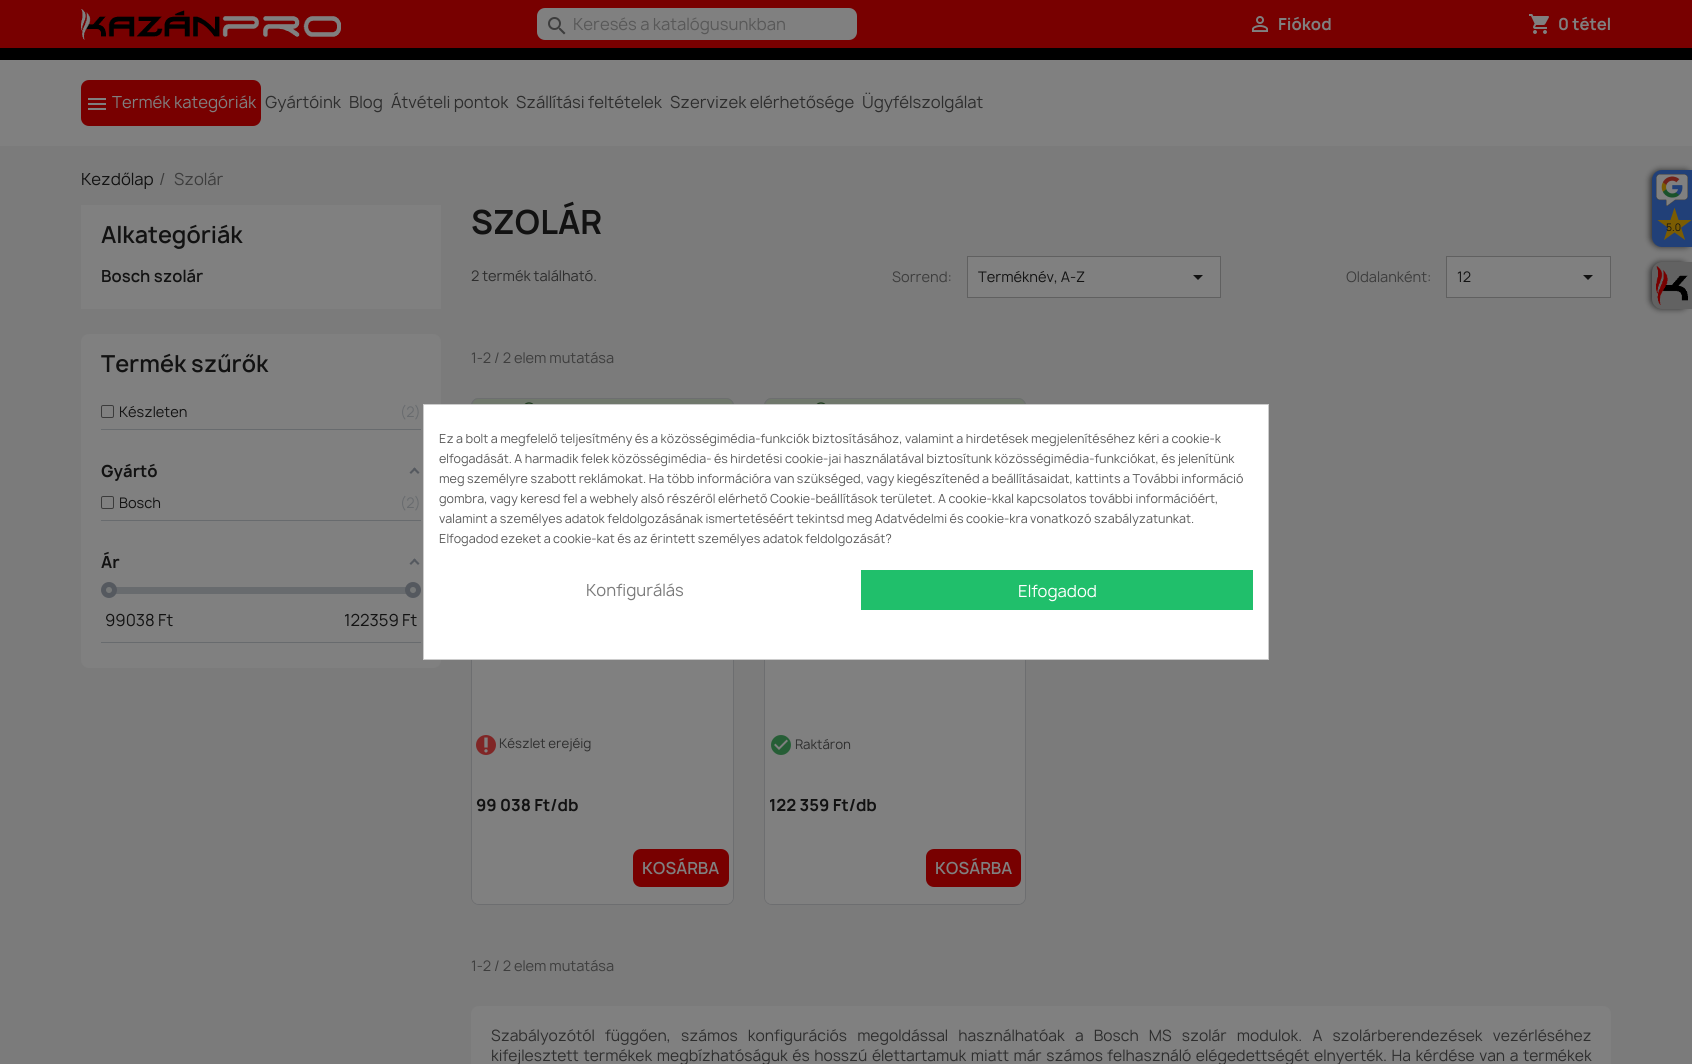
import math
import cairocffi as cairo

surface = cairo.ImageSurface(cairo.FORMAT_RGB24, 1692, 1064)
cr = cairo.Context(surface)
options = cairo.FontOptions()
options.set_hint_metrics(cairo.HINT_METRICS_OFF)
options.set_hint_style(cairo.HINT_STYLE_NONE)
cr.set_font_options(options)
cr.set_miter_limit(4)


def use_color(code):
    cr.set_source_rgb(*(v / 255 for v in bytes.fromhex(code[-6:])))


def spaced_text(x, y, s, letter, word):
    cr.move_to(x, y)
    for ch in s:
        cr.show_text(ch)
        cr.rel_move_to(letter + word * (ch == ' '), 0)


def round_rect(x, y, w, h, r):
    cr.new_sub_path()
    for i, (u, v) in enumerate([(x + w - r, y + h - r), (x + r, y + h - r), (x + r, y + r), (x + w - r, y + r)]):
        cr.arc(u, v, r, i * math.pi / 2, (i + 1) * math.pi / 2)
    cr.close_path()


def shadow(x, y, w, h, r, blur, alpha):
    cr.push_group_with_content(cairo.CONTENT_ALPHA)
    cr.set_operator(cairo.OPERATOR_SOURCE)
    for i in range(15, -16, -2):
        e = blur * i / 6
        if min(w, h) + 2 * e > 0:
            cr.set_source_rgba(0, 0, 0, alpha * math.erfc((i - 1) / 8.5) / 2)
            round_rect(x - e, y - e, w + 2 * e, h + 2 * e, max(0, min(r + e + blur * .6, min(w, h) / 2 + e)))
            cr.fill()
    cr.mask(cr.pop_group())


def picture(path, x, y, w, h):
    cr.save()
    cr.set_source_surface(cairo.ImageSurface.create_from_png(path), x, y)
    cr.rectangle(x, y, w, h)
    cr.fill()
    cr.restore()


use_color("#7b7b7b")
cr.paint()
use_color("#780000")
cr.rectangle(0, 0, 1692, 48)
cr.fill()
use_color("#000000")
cr.rectangle(0, 48, 1692, 12)
cr.fill()
picture("img1.png", 81, 9, 260, 31)
use_color("#808080")
round_rect(537, 8, 320, 32, 8)
cr.fill()
picture("img2.png", 548, 17, 18, 18)
cr.select_font_face("Manrope")
cr.set_font_size(16)
use_color("#585858")
cr.move_to(573, 30)
cr.show_text("Keresés a katalógusunkban")
picture("img3.png", 1252, 16, 16, 16)
cr.select_font_face("Manrope", cairo.FONT_SLANT_NORMAL, cairo.FONT_WEIGHT_BOLD)
use_color("#808080")
cr.move_to(1278, 30)
cr.show_text("Fiókod")
picture("img4.png", 1529, 14, 20, 20)
cr.move_to(1558, 30)
cr.show_text("0 tétel")
cr.rectangle(0, 60, 1692, 86)
cr.fill()
use_color("#780000")
round_rect(81, 80, 180, 46, 8)
cr.fill()
picture("img5.png", 88, 98, 18, 12)
cr.select_font_face("Manrope")
use_color("#808080")
cr.move_to(112, 108)
cr.show_text("Termék kategóriák")
use_color("#2d2d2d")
cr.move_to(265, 108)
cr.show_text("Gyártóink")
cr.move_to(349, 108)
cr.show_text("Blog")
cr.move_to(391, 108)
cr.show_text("Átvételi pontok")
cr.move_to(516, 108)
cr.show_text("Szállítási feltételek")
cr.move_to(670, 108)
cr.show_text("Szervizek elérhetősége")
cr.move_to(862, 108)
cr.show_text("Ügyfélszolgálat")
use_color("#121212")
cr.move_to(81, 185)
cr.show_text("Kezdőlap")
use_color("#3d3d3d")
cr.move_to(159, 185)
cr.show_text("/")
cr.move_to(174, 185)
cr.show_text("Szolár")
use_color("#808080")
cr.rectangle(81, 205, 360, 104)
cr.fill()
cr.select_font_face("Manrope SemiBold")
cr.set_font_size(22.5)
use_color("#121212")
cr.move_to(101, 243)
cr.show_text("Alkategóriák")
cr.set_font_size(16)
cr.move_to(101, 282)
cr.show_text("Bosch szolár")
use_color("#808080")
round_rect(81, 334, 360, 334, 8)
cr.fill()
cr.set_font_size(22.5)
use_color("#121212")
cr.move_to(101, 372)
cr.show_text("Termék szűrők")
use_color("#686b6e")
cr.rectangle(101, 429, 320, 1)
cr.fill()
round_rect(101.5, 405.5, 12, 12, 1.5)
use_color("#3b3b3b")
cr.set_line_width(1)
cr.stroke()
cr.select_font_face("Manrope")
cr.set_font_size(14)
use_color("#121212")
cr.move_to(119, 417)
cr.show_text("Készleten")
use_color("#686b6e")
cr.move_to(400, 417)
cr.show_text("(2)")
cr.rectangle(101, 520, 320, 1)
cr.fill()
cr.select_font_face("Manrope", cairo.FONT_SLANT_NORMAL, cairo.FONT_WEIGHT_BOLD)
cr.set_font_size(16)
use_color("#121212")
cr.move_to(101, 477)
cr.show_text("Gyártó")
use_color("#55595f")
cr.new_path()
cr.move_to(414.5, 467.5)
cr.line_to(419.5, 472.5)
cr.line_to(418, 474)
cr.line_to(413, 469)
cr.close_path()
cr.fill()
cr.new_path()
cr.move_to(414.5, 467.5)
cr.line_to(416, 469)
cr.line_to(411, 474)
cr.line_to(409.5, 472.5)
cr.close_path()
cr.fill()
round_rect(101.5, 496.5, 12, 12, 1.5)
use_color("#3b3b3b")
cr.stroke()
cr.select_font_face("Manrope")
cr.set_font_size(14)
use_color("#121212")
cr.move_to(119, 508)
cr.show_text("Bosch")
use_color("#686b6e")
cr.move_to(400, 508)
cr.show_text("(2)")
cr.rectangle(101, 642, 320, 1)
cr.fill()
cr.select_font_face("Manrope", cairo.FONT_SLANT_NORMAL, cairo.FONT_WEIGHT_BOLD)
cr.set_font_size(16)
use_color("#121212")
cr.move_to(101, 568)
cr.show_text("Ár")
use_color("#55595f")
cr.new_path()
cr.move_to(414.5, 558.5)
cr.line_to(419.5, 563.5)
cr.line_to(418, 565)
cr.line_to(413, 560)
cr.close_path()
cr.fill()
cr.new_path()
cr.move_to(414.5, 558.5)
cr.line_to(416, 560)
cr.line_to(411, 565)
cr.line_to(409.5, 563.5)
cr.close_path()
cr.fill()
use_color("#686b6e")
cr.rectangle(109, 587, 304, 7)
cr.fill()
use_color("#767878")
cr.arc(109, 590, 5.5, 0, 2 * math.pi)
cr.fill_preserve()
use_color("#55595f")
cr.set_line_width(5)
cr.stroke()
use_color("#767878")
cr.arc(413, 590, 5.5, 0, 2 * math.pi)
cr.fill_preserve()
use_color("#55595f")
cr.stroke()
cr.select_font_face("Manrope")
use_color("#121212")
cr.move_to(105, 626)
cr.show_text("99038 Ft")
cr.move_to(344, 626)
cr.show_text("122359 Ft")
cr.select_font_face("Manrope", cairo.FONT_SLANT_NORMAL, cairo.FONT_WEIGHT_BOLD)
cr.set_font_size(32)
cr.move_to(471, 234)
cr.show_text("SZOLÁR")
cr.select_font_face("Manrope")
cr.set_font_size(14)
use_color("#2d2d2d")
cr.move_to(471, 281)
cr.show_text("2 termék található.")
use_color("#3d3d3d")
cr.move_to(892, 282)
cr.show_text("Sorrend:")
use_color("#808080")
cr.rectangle(967.5, 256.5, 253, 41)
cr.fill_preserve()
use_color("#606060")
cr.set_line_width(1)
cr.stroke()
use_color("#121212")
cr.move_to(978, 282)
cr.show_text("Terméknév, A-Z")
cr.new_path()
cr.move_to(1193, 275)
cr.line_to(1203, 275)
cr.line_to(1198, 280)
cr.close_path()
cr.fill()
use_color("#3d3d3d")
cr.move_to(1346, 282)
cr.show_text("Oldalanként:")
use_color("#808080")
cr.rectangle(1446.5, 256.5, 164, 41)
cr.fill_preserve()
use_color("#606060")
cr.stroke()
use_color("#121212")
cr.move_to(1457, 282)
cr.show_text("12")
cr.new_path()
cr.move_to(1583, 275)
cr.line_to(1593, 275)
cr.line_to(1588, 280)
cr.close_path()
cr.fill()
use_color("#3d3d3d")
cr.move_to(471, 363)
cr.show_text("1-2 / 2 elem mutatása")
round_rect(471.5, 398.5, 262, 506, 7.5)
use_color("#6d6e70")
cr.stroke()
use_color("#70786c")
cr.new_path()
cr.move_to(479, 398)
cr.line_to(726, 398)
cr.curve_to(730.5, 398, 734, 401.5, 734, 406)
cr.line_to(734, 419)
cr.line_to(471, 419)
cr.line_to(471, 406)
cr.curve_to(471, 401.5, 474.5, 398, 479, 398)
cr.close_path()
cr.fill()
use_color("#6d6e70")
cr.set_fill_rule(cairo.FILL_RULE_EVEN_ODD)
cr.new_path()
cr.move_to(479, 398)
cr.line_to(726, 398)
cr.curve_to(730, 398, 734, 402, 734, 406)
cr.line_to(734, 419)
cr.line_to(471, 419)
cr.curve_to(471, 412, 468, 398, 479, 398)
cr.close_path()
cr.move_to(479, 399)
cr.line_to(726, 399)
cr.curve_to(730, 399, 733, 402, 733, 406)
cr.line_to(733, 419)
cr.line_to(472, 419)
cr.curve_to(472, 413, 469, 399, 479, 399)
cr.close_path()
cr.fill()
picture("img6.png", 524, 402, 10, 2)
use_color("#808080")
cr.new_path()
cr.move_to(472, 567)
cr.line_to(733, 567)
cr.line_to(733, 897)
cr.curve_to(733, 901, 730, 904, 726, 904)
cr.line_to(479, 904)
cr.curve_to(475, 904, 472, 901, 472, 897)
cr.close_path()
cr.fill()
use_color("#802626")
cr.arc(486, 745, 10, 0, 2 * math.pi)
cr.fill()
picture("img7.png", 484, 737, 4, 16)
cr.set_font_size(12.75)
use_color("#2d2d2d")
cr.move_to(499, 748)
cr.show_text("Készlet erejéig")
cr.select_font_face("Manrope", cairo.FONT_SLANT_NORMAL, cairo.FONT_WEIGHT_BOLD)
cr.set_font_size(16)
use_color("#121212")
cr.move_to(476, 811)
cr.show_text("99 038 Ft/db")
use_color("#780000")
round_rect(633, 849, 96, 38, 8)
cr.fill()
cr.select_font_face("Manrope SemiBold")
use_color("#808080")
cr.move_to(642, 874)
cr.show_text("KOSÁRBA")
round_rect(764.5, 398.5, 261, 506, 7.5)
use_color("#6d6e70")
cr.stroke()
use_color("#70786c")
cr.new_path()
cr.move_to(772, 398)
cr.line_to(1018, 398)
cr.curve_to(1022.5, 398, 1026, 401.5, 1026, 406)
cr.line_to(1026, 419)
cr.line_to(764, 419)
cr.line_to(764, 406)
cr.curve_to(764, 401.5, 767.5, 398, 772, 398)
cr.close_path()
cr.fill()
use_color("#6d6e70")
cr.new_path()
cr.move_to(772, 398)
cr.line_to(1018, 398)
cr.curve_to(1022, 398, 1026, 402, 1026, 406)
cr.line_to(1026, 419)
cr.line_to(764, 419)
cr.curve_to(764, 412, 761, 398, 772, 398)
cr.close_path()
cr.move_to(772, 399)
cr.line_to(1018, 399)
cr.curve_to(1022, 399, 1025, 402, 1025, 406)
cr.line_to(1025, 419)
cr.line_to(765, 419)
cr.curve_to(765, 413, 762, 399, 772, 399)
cr.close_path()
cr.fill()
picture("img6.png", 816, 402, 10, 2)
use_color("#808080")
cr.new_path()
cr.move_to(765, 567)
cr.line_to(1025, 567)
cr.line_to(1025, 897)
cr.curve_to(1025, 901, 1022, 904, 1018, 904)
cr.line_to(772, 904)
cr.curve_to(768, 904, 765, 901, 765, 897)
cr.close_path()
cr.fill()
picture("img8.png", 771, 735, 20, 20)
cr.select_font_face("Manrope")
cr.set_font_size(12.75)
use_color("#2d2d2d")
cr.move_to(795, 749)
cr.show_text("Raktáron")
cr.select_font_face("Manrope", cairo.FONT_SLANT_NORMAL, cairo.FONT_WEIGHT_BOLD)
cr.set_font_size(16)
use_color("#121212")
cr.move_to(769, 811)
cr.show_text("122 359 Ft/db")
use_color("#780000")
round_rect(926, 849, 95, 38, 8)
cr.fill()
cr.select_font_face("Manrope SemiBold")
use_color("#808080")
cr.move_to(935, 874)
cr.show_text("KOSÁRBA")
cr.select_font_face("Manrope")
cr.set_font_size(14)
use_color("#3d3d3d")
cr.move_to(471, 971)
cr.show_text("1-2 / 2 elem mutatása")
use_color("#808080")
round_rect(471, 1006, 1140, 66, 8)
cr.fill()
cr.set_font_size(15)
use_color("#2d2d2d")
spaced_text(491, 1041, "Szabályozótól függően, számos konfigurációs megoldással használhatóak a Bosch MS szolár modulok. A szolárberendezések vezérléséhez", 0, 7)
spaced_text(491, 1061, "kifejlesztett termékek megbízhatóságuk és hosszú élettartamuk miatt már számos felhasználó elégedettségét elnyerték. Ha kérdése van a termékek", 0, 1.4)
use_color("#000000")
shadow(1650, 170, 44, 77, 10, 3, 0.6)
use_color("#214078")
cr.new_path()
cr.move_to(1662, 170)
cr.line_to(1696, 170)
cr.line_to(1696, 247)
cr.line_to(1662, 247)
cr.curve_to(1656.5, 247, 1652, 242.5, 1652, 237)
cr.line_to(1652, 180)
cr.curve_to(1652, 174.5, 1656.5, 170, 1662, 170)
cr.close_path()
cr.fill()
picture("img9.png", 1656, 174, 32, 32)
cr.select_font_face("DejaVu Sans", cairo.FONT_SLANT_NORMAL, cairo.FONT_WEIGHT_BOLD)
cr.set_font_size(40)
use_color("#7b5c02")
cr.move_to(1656, 239)
cr.show_text("★")
cr.select_font_face("Manrope")
cr.set_font_size(10)
use_color("#121212")
cr.move_to(1666, 231)
cr.show_text("5.0")
use_color("#000000")
shadow(1650, 262, 40, 47, 10, 3, 0.6)
use_color("#626262")
cr.new_path()
cr.move_to(1662, 262)
cr.line_to(1692, 262)
cr.line_to(1692, 309)
cr.line_to(1662, 309)
cr.curve_to(1656.5, 309, 1652, 304.5, 1652, 299)
cr.line_to(1652, 272)
cr.curve_to(1652, 266.5, 1656.5, 262, 1662, 262)
cr.close_path()
cr.fill()
picture("img10.png", 1656, 266, 32, 39)
use_color("#ffffff")
cr.rectangle(423.5, 404.5, 845, 255)
cr.fill_preserve()
use_color("#cccccc")
cr.stroke()
cr.set_font_size(12)
use_color("#585858")
cr.move_to(439, 443)
cr.show_text("Ez a bolt a megfelelő teljesítmény és a közösségimédia-funkciók biztosításához, valamint a hirdetések megjelenítéséhez kéri a cookie-k")
cr.move_to(439, 463)
cr.show_text("elfogadását. A harmadik felek közösségimédia- és hirdetési cookie-jai használatával biztosítunk közösségimédia-funkciókat, és jelenítünk")
cr.move_to(439, 483)
cr.show_text("meg személyre szabott reklámokat. Ha több információra van szükséged, vagy kiegészítenéd a beállításaidat, kattints a További információ")
cr.move_to(439, 503)
cr.show_text("gombra, vagy keresd fel a webhely alsó részéről elérhető Cookie-beállítások területet. A cookie-kkal kapcsolatos további információért,")
cr.move_to(439, 523)
cr.show_text("valamint a személyes adatok feldolgozásának ismertetéséért tekintsd meg Adatvédelmi és cookie-kra vonatkozó szabályzatunkat.")
cr.move_to(439, 543)
cr.show_text("Elfogadod ezeket a cookie-kat és az érintett személyes adatok feldolgozását?")
cr.set_font_size(16)
use_color("#7a7a7a")
cr.move_to(586, 596)
cr.show_text("Konfigurálás")
use_color("#20bf6b")
cr.rectangle(861, 570, 392, 40)
cr.fill()
use_color("#ffffff")
cr.move_to(1018, 597)
cr.show_text("Elfogadod")
surface.write_to_png("result.png")
